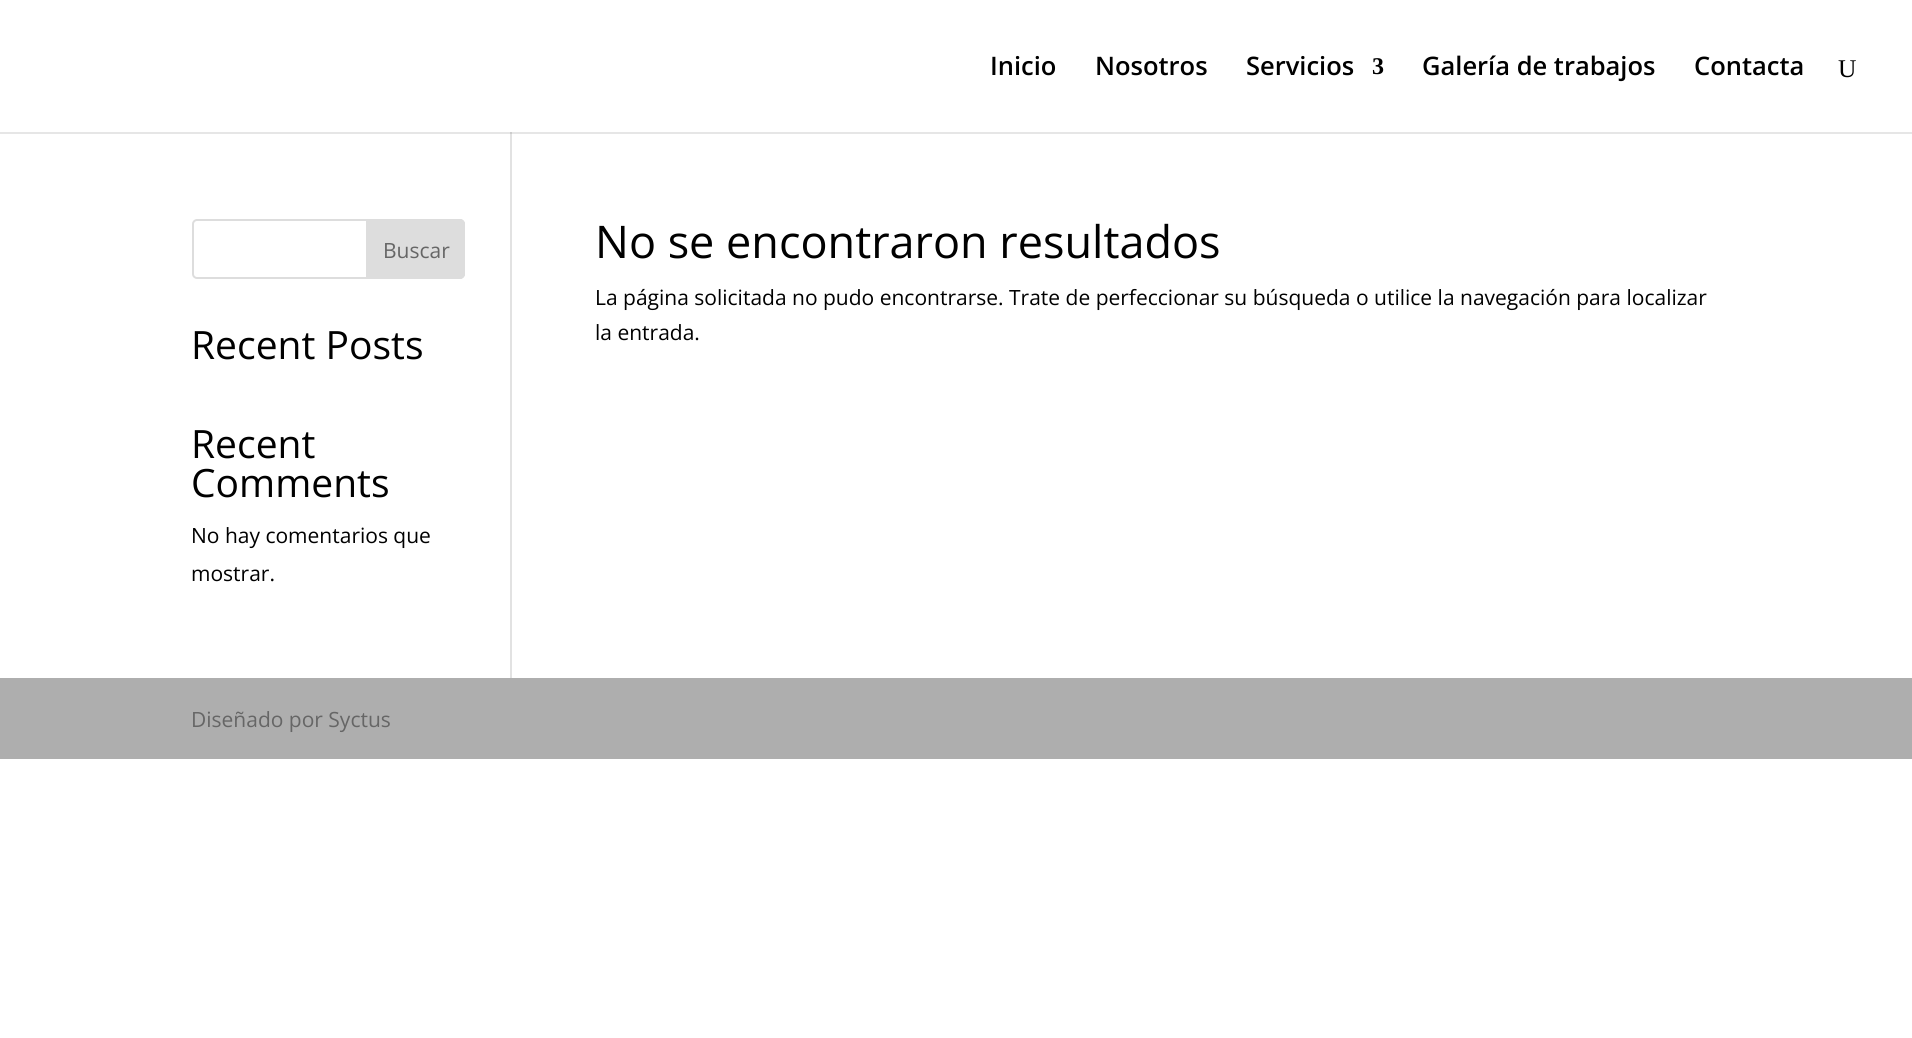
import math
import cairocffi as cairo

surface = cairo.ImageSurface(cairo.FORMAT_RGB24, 1912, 1038)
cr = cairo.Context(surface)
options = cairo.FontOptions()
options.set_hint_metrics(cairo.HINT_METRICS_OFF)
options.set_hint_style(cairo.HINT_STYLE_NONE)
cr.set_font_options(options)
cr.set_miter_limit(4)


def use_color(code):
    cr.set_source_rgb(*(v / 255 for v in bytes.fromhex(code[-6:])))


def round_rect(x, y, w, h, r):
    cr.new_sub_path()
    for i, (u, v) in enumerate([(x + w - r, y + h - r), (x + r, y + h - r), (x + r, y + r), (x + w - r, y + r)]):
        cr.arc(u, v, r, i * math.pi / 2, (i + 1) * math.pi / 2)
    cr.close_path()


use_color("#ffffff")
cr.paint()
use_color("#e2e2e2")
cr.rectangle(510, 132, 2, 546)
cr.fill()
cr.set_source_rgba(0, 0, 0, 0.1)
cr.new_path()
cr.move_to(0, 132)
cr.line_to(0, 134)
cr.line_to(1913, 134)
cr.line_to(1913, 2)
cr.line_to(1912, 2)
cr.line_to(1912, 132)
cr.close_path()
cr.fill()
cr.select_font_face("Open Sans SemiBold")
cr.set_font_size(25.5)
use_color("#000000")
cr.move_to(990, 75)
cr.show_text("Inicio")
cr.move_to(1095, 75)
cr.show_text("Nosotros")
cr.move_to(1246, 75)
cr.show_text("Servicios")
cr.select_font_face("Liberation Serif", cairo.FONT_SLANT_NORMAL, cairo.FONT_WEIGHT_BOLD)
cr.set_font_size(24)
cr.move_to(1372, 74)
cr.show_text("3")
cr.select_font_face("Open Sans SemiBold")
cr.set_font_size(25.5)
cr.move_to(1422, 75)
cr.show_text("Galería de trabajos")
cr.move_to(1694, 75)
cr.show_text("Contacta")
cr.select_font_face("Liberation Serif")
cr.move_to(1838, 77)
cr.show_text("U")
round_rect(193, 220, 271, 58, 4)
use_color("#dddddd")
cr.stroke()
cr.new_path()
cr.move_to(367, 220)
cr.line_to(460, 220)
cr.curve_to(462, 220, 464, 222, 464, 224)
cr.line_to(464, 274)
cr.curve_to(464, 276, 462, 278, 460, 278)
cr.line_to(367, 278)
cr.close_path()
cr.fill_preserve()
cr.stroke()
cr.select_font_face("Open Sans")
cr.set_font_size(21)
use_color("#666666")
cr.move_to(383, 258)
cr.show_text("Buscar")
cr.set_font_size(39)
use_color("#000000")
cr.move_to(191, 359)
cr.show_text("Recent Posts")
cr.move_to(191, 458)
cr.show_text("Recent")
cr.move_to(191, 497)
cr.show_text("Comments")
cr.set_font_size(21)
cr.move_to(191, 543)
cr.show_text("No hay comentarios que")
cr.move_to(191, 581)
cr.show_text("mostrar.")
cr.set_font_size(45)
cr.move_to(595, 258)
cr.show_text("No se encontraron resultados")
cr.set_font_size(21)
cr.move_to(595, 305)
cr.show_text("La página solicitada no pudo encontrarse. Trate de perfeccionar su búsqueda o utilice la navegación para localizar")
cr.move_to(595, 340)
cr.show_text("la entrada.")
use_color("#aeaeae")
cr.rectangle(0, 678, 1912, 81)
cr.fill()
use_color("#666666")
cr.move_to(191, 727)
cr.show_text("Diseñado por Syctus")
surface.write_to_png("result.png")
